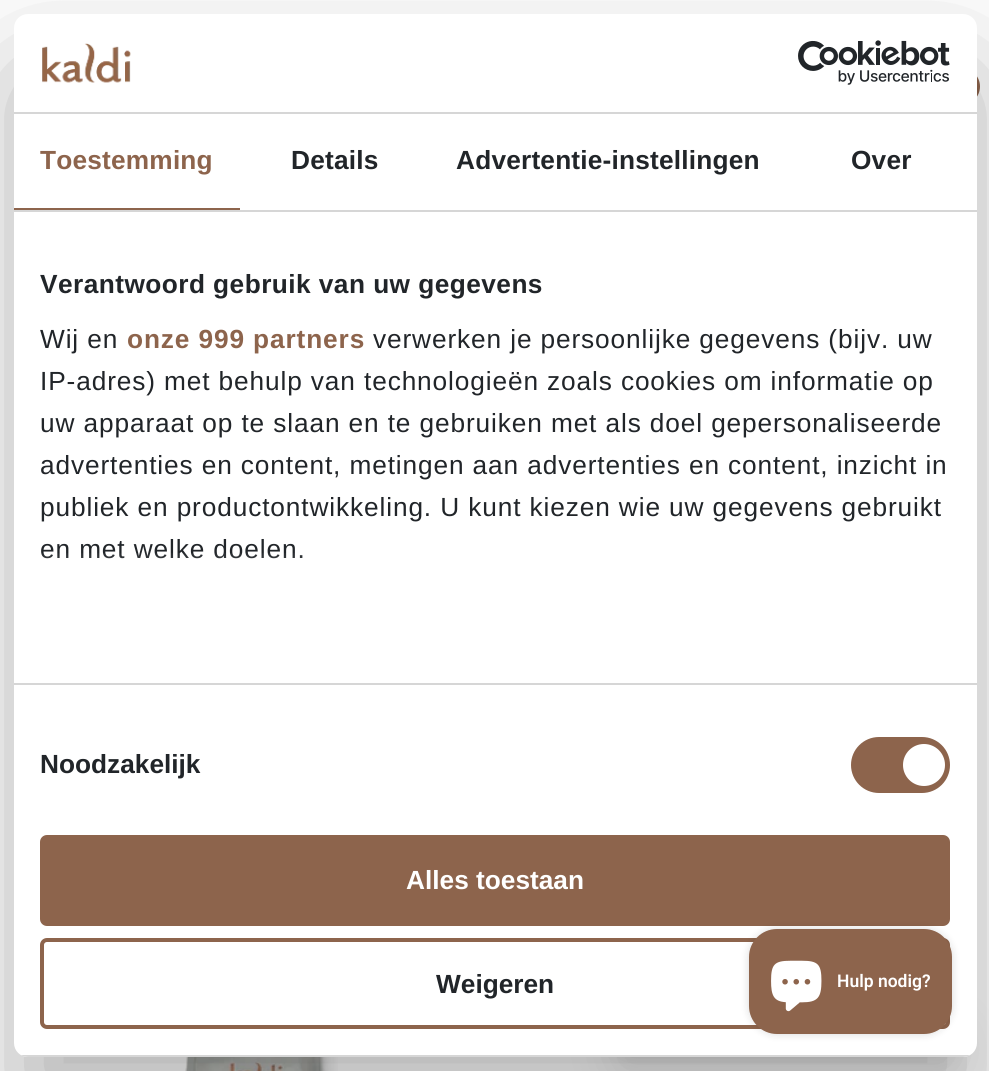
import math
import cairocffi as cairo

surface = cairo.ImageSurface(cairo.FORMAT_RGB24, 989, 1071)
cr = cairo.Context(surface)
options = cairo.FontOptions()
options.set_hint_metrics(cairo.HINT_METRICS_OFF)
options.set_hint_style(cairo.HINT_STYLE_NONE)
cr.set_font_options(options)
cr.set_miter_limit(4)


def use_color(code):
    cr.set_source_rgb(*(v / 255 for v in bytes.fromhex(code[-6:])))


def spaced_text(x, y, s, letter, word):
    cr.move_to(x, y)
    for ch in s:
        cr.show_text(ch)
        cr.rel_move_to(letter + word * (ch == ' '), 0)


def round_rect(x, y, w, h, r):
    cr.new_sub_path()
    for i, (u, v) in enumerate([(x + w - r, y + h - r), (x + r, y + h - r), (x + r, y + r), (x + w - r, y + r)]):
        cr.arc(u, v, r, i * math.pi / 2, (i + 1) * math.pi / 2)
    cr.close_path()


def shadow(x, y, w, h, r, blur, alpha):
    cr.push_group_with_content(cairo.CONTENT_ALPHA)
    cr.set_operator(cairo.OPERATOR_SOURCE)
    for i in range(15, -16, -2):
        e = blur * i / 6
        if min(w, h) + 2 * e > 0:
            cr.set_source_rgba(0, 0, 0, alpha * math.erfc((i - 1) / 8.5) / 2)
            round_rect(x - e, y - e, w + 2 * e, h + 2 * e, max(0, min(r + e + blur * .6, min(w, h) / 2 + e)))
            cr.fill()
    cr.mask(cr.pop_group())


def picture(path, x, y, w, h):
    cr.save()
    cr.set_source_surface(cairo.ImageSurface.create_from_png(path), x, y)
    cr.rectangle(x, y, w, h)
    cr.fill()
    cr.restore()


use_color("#ffffff")
cr.paint()
use_color("#8d644c")
cr.arc(961.5, 86.5, 18.5, 0, 2 * math.pi)
cr.fill()
picture("img1.png", 185, 1057, 153, 14)
use_color("#000000")
shadow(14, 70, 963, 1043, 14, 59.5, 0.3)
shadow(613, 1003, 346, 51, 25.5, 9, 0.1)
shadow(611, 1022, 350, 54, 27, 22, 0.1)
use_color("#ffffff")
round_rect(14, 14, 963, 1043, 14)
cr.fill()
use_color("#d6d6d6")
cr.rectangle(14, 112, 963, 2)
cr.fill()
picture("img2.png", 42, 43, 89, 40)
picture("img3.png", 798, 40, 152, 45)
cr.rectangle(14, 210, 963, 2)
cr.fill()
use_color("#8d644c")
cr.rectangle(14, 208, 226, 2)
cr.fill()
cr.select_font_face("Liberation Sans", cairo.FONT_SLANT_NORMAL, cairo.FONT_WEIGHT_BOLD)
cr.set_font_size(26.25)
spaced_text(40, 169, "Toestemming", 0.2, 0)
use_color("#212529")
spaced_text(291, 169, "Details", 0.2, 0)
spaced_text(456, 169, "Advertentie-instellingen", 0.2, 0)
spaced_text(851, 169, "Over", 0.2, 0)
use_color("#d6d6d6")
cr.rectangle(14, 683, 963, 2)
cr.fill()
use_color("#212529")
spaced_text(40, 293, "Verantwoord gebruik van uw gegevens", 0.45, 0)
cr.select_font_face("Liberation Sans")
spaced_text(40, 348, "Wij en", 0.88, 0)
cr.select_font_face("Liberation Sans", cairo.FONT_SLANT_NORMAL, cairo.FONT_WEIGHT_BOLD)
use_color("#8d644c")
spaced_text(127, 348, "onze 999 partners", 0.88, 0)
cr.select_font_face("Liberation Sans")
use_color("#212529")
spaced_text(373, 348, "verwerken je persoonlijke gegevens (bijv. uw", 0.88, 0)
spaced_text(40, 390, "IP-adres) met behulp van technologieën zoals cookies om informatie op", 0.88, 0)
spaced_text(40, 432, "uw apparaat op te slaan en te gebruiken met als doel gepersonaliseerde", 0.88, 0)
spaced_text(40, 474, "advertenties en content, metingen aan advertenties en content, inzicht in", 0.88, 0)
spaced_text(40, 516, "publiek en productontwikkeling. U kunt kiezen wie uw gegevens gebruikt", 0.88, 0)
spaced_text(40, 558, "en met welke doelen.", 0.88, 0)
gradient = cairo.LinearGradient(484, 683, 484, 551)
gradient.add_color_stop_rgba(0, 1, 1, 1, 1)
gradient.add_color_stop_rgba(0.5, 1, 1, 1, 0.8)
gradient.add_color_stop_rgba(1, 1, 1, 1, 0)
cr.set_source(gradient)
cr.rectangle(42, 553, 261, 6)
cr.fill()
cr.select_font_face("Liberation Sans", cairo.FONT_SLANT_NORMAL, cairo.FONT_WEIGHT_BOLD)
use_color("#212529")
cr.move_to(40, 773)
cr.show_text("Noodzakelijk")
use_color("#8d644c")
round_rect(851, 737, 99, 56, 28)
cr.fill()
use_color("#ffffff")
cr.arc(924, 765, 21, 0, 2 * math.pi)
cr.fill()
cr.save()
round_rect(14, 14, 963, 1043, 14)
cr.clip()
use_color("#d6d6d6")
cr.rectangle(14, 1055, 963, 2)
cr.fill()
cr.restore()
use_color("#8d644c")
round_rect(42, 837, 906, 87, 5)
cr.fill_preserve()
cr.set_line_width(4)
cr.stroke()
use_color("#ffffff")
cr.move_to(406, 889)
cr.show_text("Alles toestaan")
round_rect(42, 940, 906, 87, 5)
use_color("#8d644c")
cr.stroke()
use_color("#212529")
cr.move_to(436, 993)
cr.show_text("Weigeren")
use_color("#000000")
shadow(749, 929, 203, 105, 28, 4.5, 0.15)
use_color("#8d644c")
round_rect(749, 929, 203, 105, 28)
cr.fill()
picture("img4.png", 771, 960, 51, 52)
cr.select_font_face("Roboto SemiBold")
cr.set_font_size(17.5)
use_color("#ffffff")
cr.move_to(837, 987)
cr.show_text("Hulp nodig?")
surface.write_to_png("result.png")
